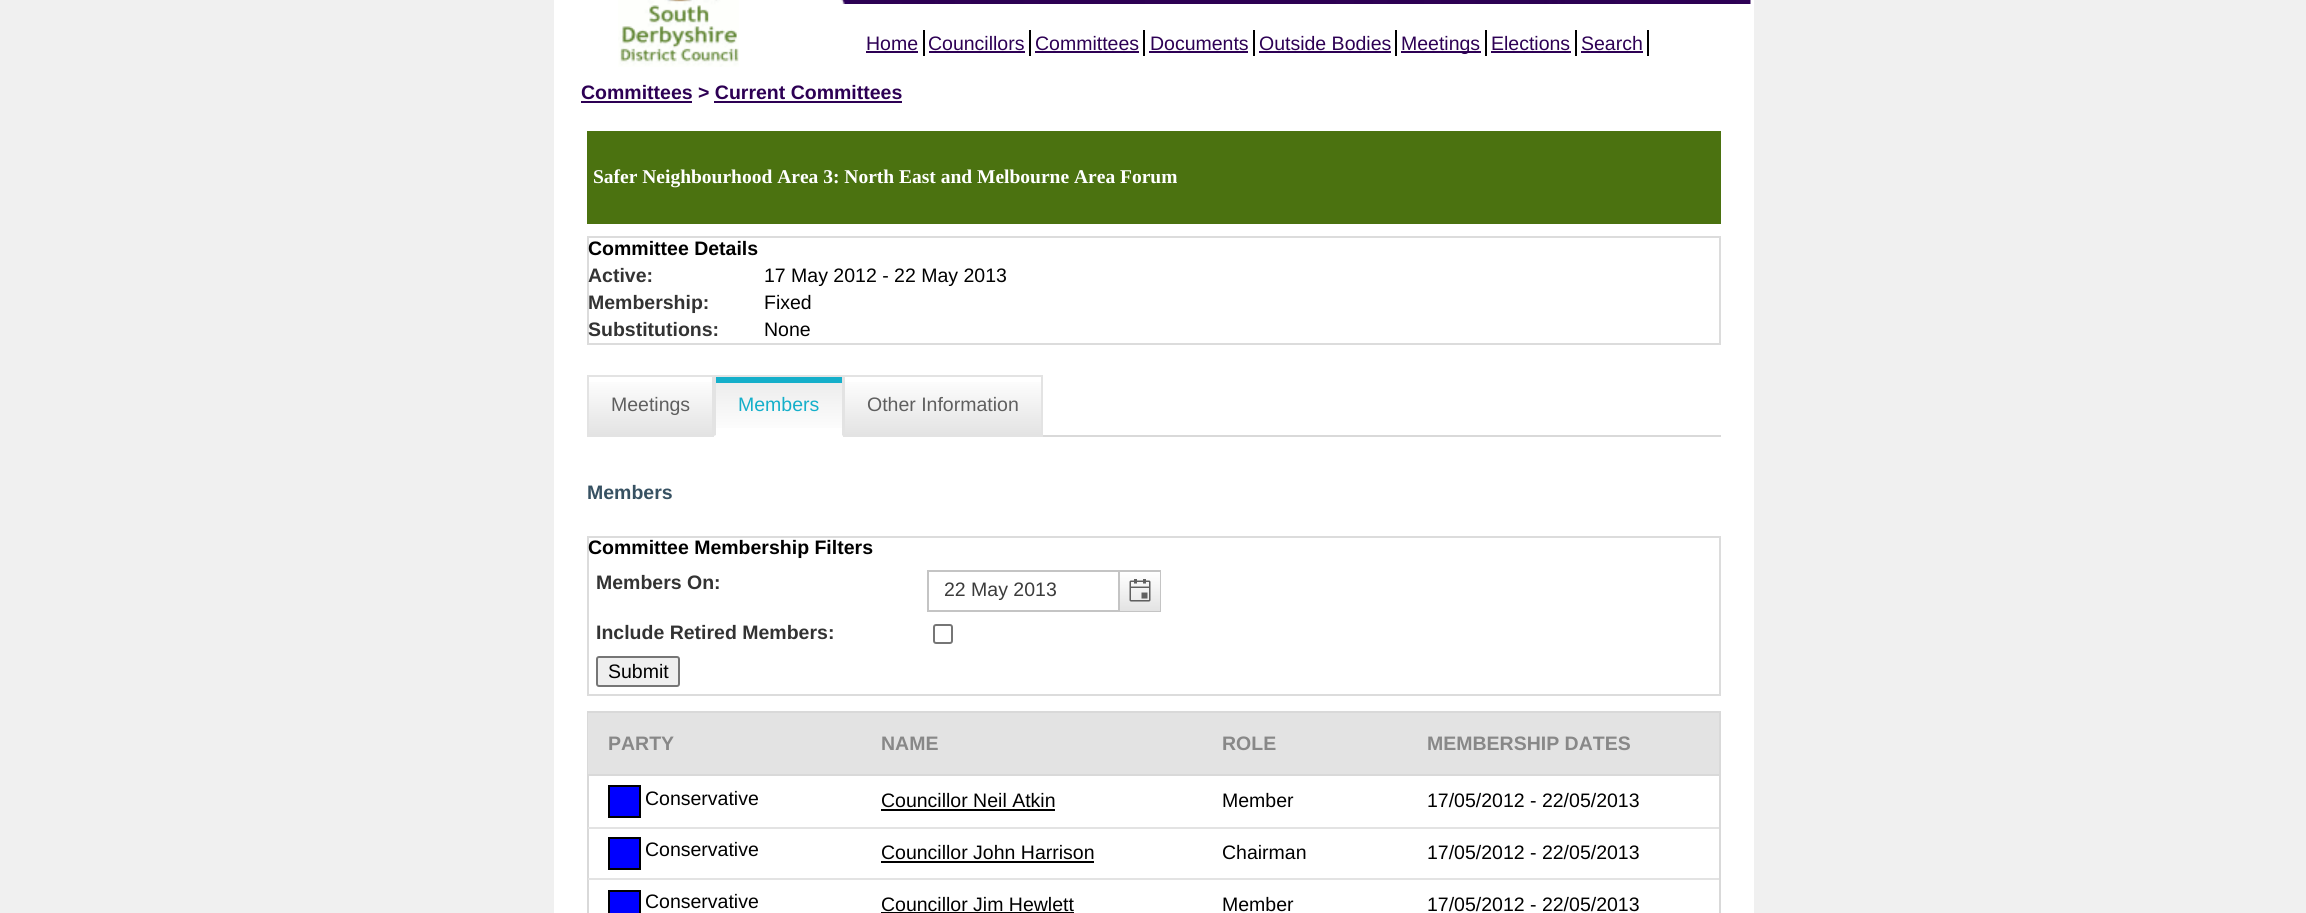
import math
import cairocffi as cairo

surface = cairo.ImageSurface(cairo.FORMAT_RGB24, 2306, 913)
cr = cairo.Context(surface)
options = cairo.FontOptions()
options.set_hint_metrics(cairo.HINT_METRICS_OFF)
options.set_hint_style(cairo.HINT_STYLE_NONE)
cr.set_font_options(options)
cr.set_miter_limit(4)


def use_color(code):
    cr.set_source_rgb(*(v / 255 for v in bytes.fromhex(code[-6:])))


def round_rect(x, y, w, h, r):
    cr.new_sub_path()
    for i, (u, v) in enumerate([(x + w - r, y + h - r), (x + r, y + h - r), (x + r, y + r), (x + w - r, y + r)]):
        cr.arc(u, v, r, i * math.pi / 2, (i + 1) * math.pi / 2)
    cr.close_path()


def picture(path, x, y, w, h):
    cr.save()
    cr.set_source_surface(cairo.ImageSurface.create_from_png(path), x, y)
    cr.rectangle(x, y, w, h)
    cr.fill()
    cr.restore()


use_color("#f0f0f0")
cr.paint()
use_color("#ffffff")
cr.rectangle(554, 0, 1200, 913)
cr.fill()
picture("img1.png", 618, 0, 121, 67)
picture("img2.png", 841, 0, 910, 4)
use_color("#000000")
cr.rectangle(923, 30, 2, 26)
cr.fill()
cr.select_font_face("Liberation Sans")
cr.set_font_size(19.5)
use_color("#2d0054")
cr.move_to(866, 50)
cr.show_text("Home")
cr.rectangle(866, 51, 52, 2)
cr.fill()
use_color("#000000")
cr.rectangle(1029, 30, 2, 26)
cr.fill()
use_color("#2d0054")
cr.move_to(928, 50)
cr.show_text("Councillors")
cr.rectangle(929, 51, 96, 2)
cr.fill()
use_color("#000000")
cr.rectangle(1143, 30, 2, 26)
cr.fill()
use_color("#2d0054")
cr.move_to(1035, 50)
cr.show_text("Committees")
cr.rectangle(1035, 51, 104, 2)
cr.fill()
use_color("#000000")
cr.rectangle(1253, 30, 2, 26)
cr.fill()
use_color("#2d0054")
cr.move_to(1150, 50)
cr.show_text("Documents")
cr.rectangle(1149, 51, 99, 2)
cr.fill()
use_color("#000000")
cr.rectangle(1395, 30, 2, 26)
cr.fill()
use_color("#2d0054")
cr.move_to(1259, 50)
cr.show_text("Outside Bodies")
cr.rectangle(1259, 51, 132, 2)
cr.fill()
use_color("#000000")
cr.rectangle(1485, 30, 2, 26)
cr.fill()
use_color("#2d0054")
cr.rectangle(1401, 51, 80, 2)
cr.fill()
cr.move_to(1401, 50)
cr.show_text("Meetings")
use_color("#000000")
cr.rectangle(1575, 30, 2, 26)
cr.fill()
use_color("#2d0054")
cr.move_to(1491, 50)
cr.show_text("Elections")
cr.rectangle(1491, 51, 80, 2)
cr.fill()
use_color("#000000")
cr.rectangle(1647, 30, 2, 26)
cr.fill()
use_color("#2d0054")
cr.move_to(1581, 50)
cr.show_text("Search")
cr.rectangle(1581, 51, 62, 2)
cr.fill()
cr.select_font_face("Liberation Sans", cairo.FONT_SLANT_NORMAL, cairo.FONT_WEIGHT_BOLD)
cr.move_to(581, 99)
cr.show_text("Committees > Current Committees")
cr.rectangle(581, 101, 111, 2)
cr.fill()
cr.rectangle(714, 101, 188, 2)
cr.fill()
use_color("#4b7210")
cr.rectangle(587, 131, 1134, 93)
cr.fill()
cr.select_font_face("Liberation Serif", cairo.FONT_SLANT_NORMAL, cairo.FONT_WEIGHT_BOLD)
use_color("#ffffff")
cr.move_to(593, 183)
cr.show_text("Safer Neighbourhood Area 3: North East and Melbourne Area Forum")
cr.rectangle(588, 237, 1132, 107)
use_color("#dcdcdc")
cr.stroke()
cr.select_font_face("Liberation Sans", cairo.FONT_SLANT_NORMAL, cairo.FONT_WEIGHT_BOLD)
use_color("#000000")
cr.move_to(588, 255)
cr.show_text("Committee Details")
use_color("#333333")
cr.move_to(588, 282)
cr.show_text("Active:")
cr.select_font_face("Liberation Sans")
use_color("#000000")
cr.move_to(764, 282)
cr.show_text("17 May 2012 - 22 May 2013")
cr.select_font_face("Liberation Sans", cairo.FONT_SLANT_NORMAL, cairo.FONT_WEIGHT_BOLD)
use_color("#333333")
cr.move_to(588, 309)
cr.show_text("Membership:")
cr.select_font_face("Liberation Sans")
use_color("#000000")
cr.move_to(764, 309)
cr.show_text("Fixed")
cr.select_font_face("Liberation Sans", cairo.FONT_SLANT_NORMAL, cairo.FONT_WEIGHT_BOLD)
use_color("#333333")
cr.move_to(588, 336)
cr.show_text("Substitutions:")
cr.select_font_face("Liberation Sans")
use_color("#000000")
cr.move_to(764, 336)
cr.show_text("None")
use_color("#d9d9d9")
cr.rectangle(1043, 435, 678, 2)
cr.fill()
gradient = cairo.LinearGradient(650, 377, 650, 435)
gradient.add_color_stop_rgba(0, 1, 1, 1, 1)
gradient.add_color_stop_rgba(1, 0.89, 0.89, 0.89, 1)
cr.set_source(gradient)
cr.rectangle(589, 382, 123, 53)
cr.fill()
cr.rectangle(588, 376, 125, 60)
use_color("#e3e3e3")
cr.stroke()
use_color("#5f5f5f")
cr.move_to(611, 411)
cr.show_text("Meetings")
gradient = cairo.LinearGradient(779, 377, 779, 435)
gradient.add_color_stop_rgba(0, 0.922, 0.922, 0.922, 1)
gradient.add_color_stop_rgba(1, 1, 1, 1, 1)
cr.set_source(gradient)
cr.rectangle(716, 383, 126, 45)
cr.fill()
use_color("#e3e3e3")
cr.rectangle(714, 375, 129, 2)
cr.fill()
cr.new_path()
cr.move_to(843, 375)
cr.line_to(843, 436)
cr.line_to(842, 435)
cr.line_to(842, 376)
cr.close_path()
cr.fill()
cr.new_path()
cr.move_to(714, 436)
cr.line_to(714, 375)
cr.line_to(716, 376)
cr.line_to(716, 435)
cr.close_path()
cr.fill()
use_color("#14afca")
cr.rectangle(716, 377, 126, 6)
cr.fill()
cr.move_to(738, 411)
cr.show_text("Members")
gradient = cairo.LinearGradient(943, 377, 943, 435)
gradient.add_color_stop_rgba(0, 1, 1, 1, 1)
gradient.add_color_stop_rgba(1, 0.89, 0.89, 0.89, 1)
cr.set_source(gradient)
cr.rectangle(845, 382, 196, 53)
cr.fill()
cr.rectangle(844, 376, 198, 60)
use_color("#e3e3e3")
cr.stroke()
use_color("#5f5f5f")
cr.move_to(867, 411)
cr.show_text("Other Information")
cr.select_font_face("Liberation Sans", cairo.FONT_SLANT_NORMAL, cairo.FONT_WEIGHT_BOLD)
use_color("#375162")
cr.move_to(587, 499)
cr.show_text("Members")
cr.rectangle(588, 537, 1132, 158)
use_color("#dcdcdc")
cr.stroke()
use_color("#000000")
cr.move_to(588, 554)
cr.show_text("Committee Membership Filters")
use_color("#333333")
cr.move_to(596, 589)
cr.show_text("Members On:")
cr.rectangle(928, 571, 232, 40)
use_color("#c4c4c4")
cr.stroke()
cr.select_font_face("Liberation Sans")
use_color("#3b3b3b")
cr.move_to(944, 596)
cr.show_text("22 May 2013")
gradient = cairo.LinearGradient(1139, 572, 1139, 611)
gradient.add_color_stop_rgba(0, 1, 1, 1, 1)
gradient.add_color_stop_rgba(1, 0.89, 0.89, 0.89, 1)
cr.set_source(gradient)
cr.rectangle(1120, 572, 40, 39)
cr.fill()
use_color("#c4c4c4")
cr.rectangle(1118, 572, 2, 39)
cr.fill()
picture("img3.png", 1129, 579, 22, 23)
cr.select_font_face("Liberation Sans", cairo.FONT_SLANT_NORMAL, cairo.FONT_WEIGHT_BOLD)
use_color("#333333")
cr.move_to(596, 639)
cr.show_text("Include Retired Members:")
round_rect(934, 625, 18, 18, 2)
use_color("#767676")
cr.stroke()
use_color("#efefef")
round_rect(597, 657, 82, 29, 2)
cr.fill_preserve()
use_color("#767676")
cr.stroke()
cr.select_font_face("Liberation Sans")
use_color("#000000")
cr.move_to(608, 678)
cr.show_text("Submit")
cr.rectangle(588, 712, 1132, 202)
use_color("#d9d9d9")
cr.stroke()
use_color("#e3e3e3")
cr.rectangle(588, 713, 1131, 61)
cr.fill()
use_color("#d9d9d9")
cr.rectangle(588, 774, 1131, 2)
cr.fill()
cr.select_font_face("Liberation Sans", cairo.FONT_SLANT_NORMAL, cairo.FONT_WEIGHT_BOLD)
use_color("#888888")
cr.move_to(608, 750)
cr.show_text("PARTY")
cr.move_to(881, 750)
cr.show_text("NAME")
cr.move_to(1222, 750)
cr.show_text("ROLE")
cr.move_to(1427, 750)
cr.show_text("MEMBERSHIP DATES")
use_color("#e3e3e3")
cr.rectangle(588, 827, 1131, 2)
cr.fill()
use_color("#0000ff")
cr.rectangle(609, 786, 31, 31)
cr.fill_preserve()
use_color("#000000")
cr.stroke()
cr.select_font_face("Liberation Sans")
cr.move_to(645, 805)
cr.show_text("Conservative")
cr.move_to(881, 807)
cr.show_text("Councillor Neil Atkin")
cr.rectangle(881, 809, 174, 2)
cr.fill()
cr.move_to(1222, 807)
cr.show_text("Member")
cr.move_to(1427, 807)
cr.show_text("17/05/2012 - 22/05/2013")
use_color("#e3e3e3")
cr.rectangle(588, 878, 1131, 2)
cr.fill()
use_color("#0000ff")
cr.rectangle(609, 838, 31, 31)
cr.fill_preserve()
use_color("#000000")
cr.stroke()
cr.move_to(645, 856)
cr.show_text("Conservative")
cr.move_to(881, 859)
cr.show_text("Councillor John Harrison")
cr.rectangle(881, 861, 213, 2)
cr.fill()
cr.move_to(1222, 859)
cr.show_text("Chairman")
cr.move_to(1427, 859)
cr.show_text("17/05/2012 - 22/05/2013")
use_color("#0000ff")
cr.rectangle(609, 891, 31, 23)
cr.fill_preserve()
use_color("#000000")
cr.stroke()
cr.move_to(645, 908)
cr.show_text("Conservative")
cr.move_to(881, 911)
cr.show_text("Councillor Jim Hewlett")
cr.rectangle(881, 912, 193, 1)
cr.fill()
cr.move_to(1222, 911)
cr.show_text("Member")
cr.move_to(1427, 911)
cr.show_text("17/05/2012 - 22/05/2013")
surface.write_to_png("result.png")
